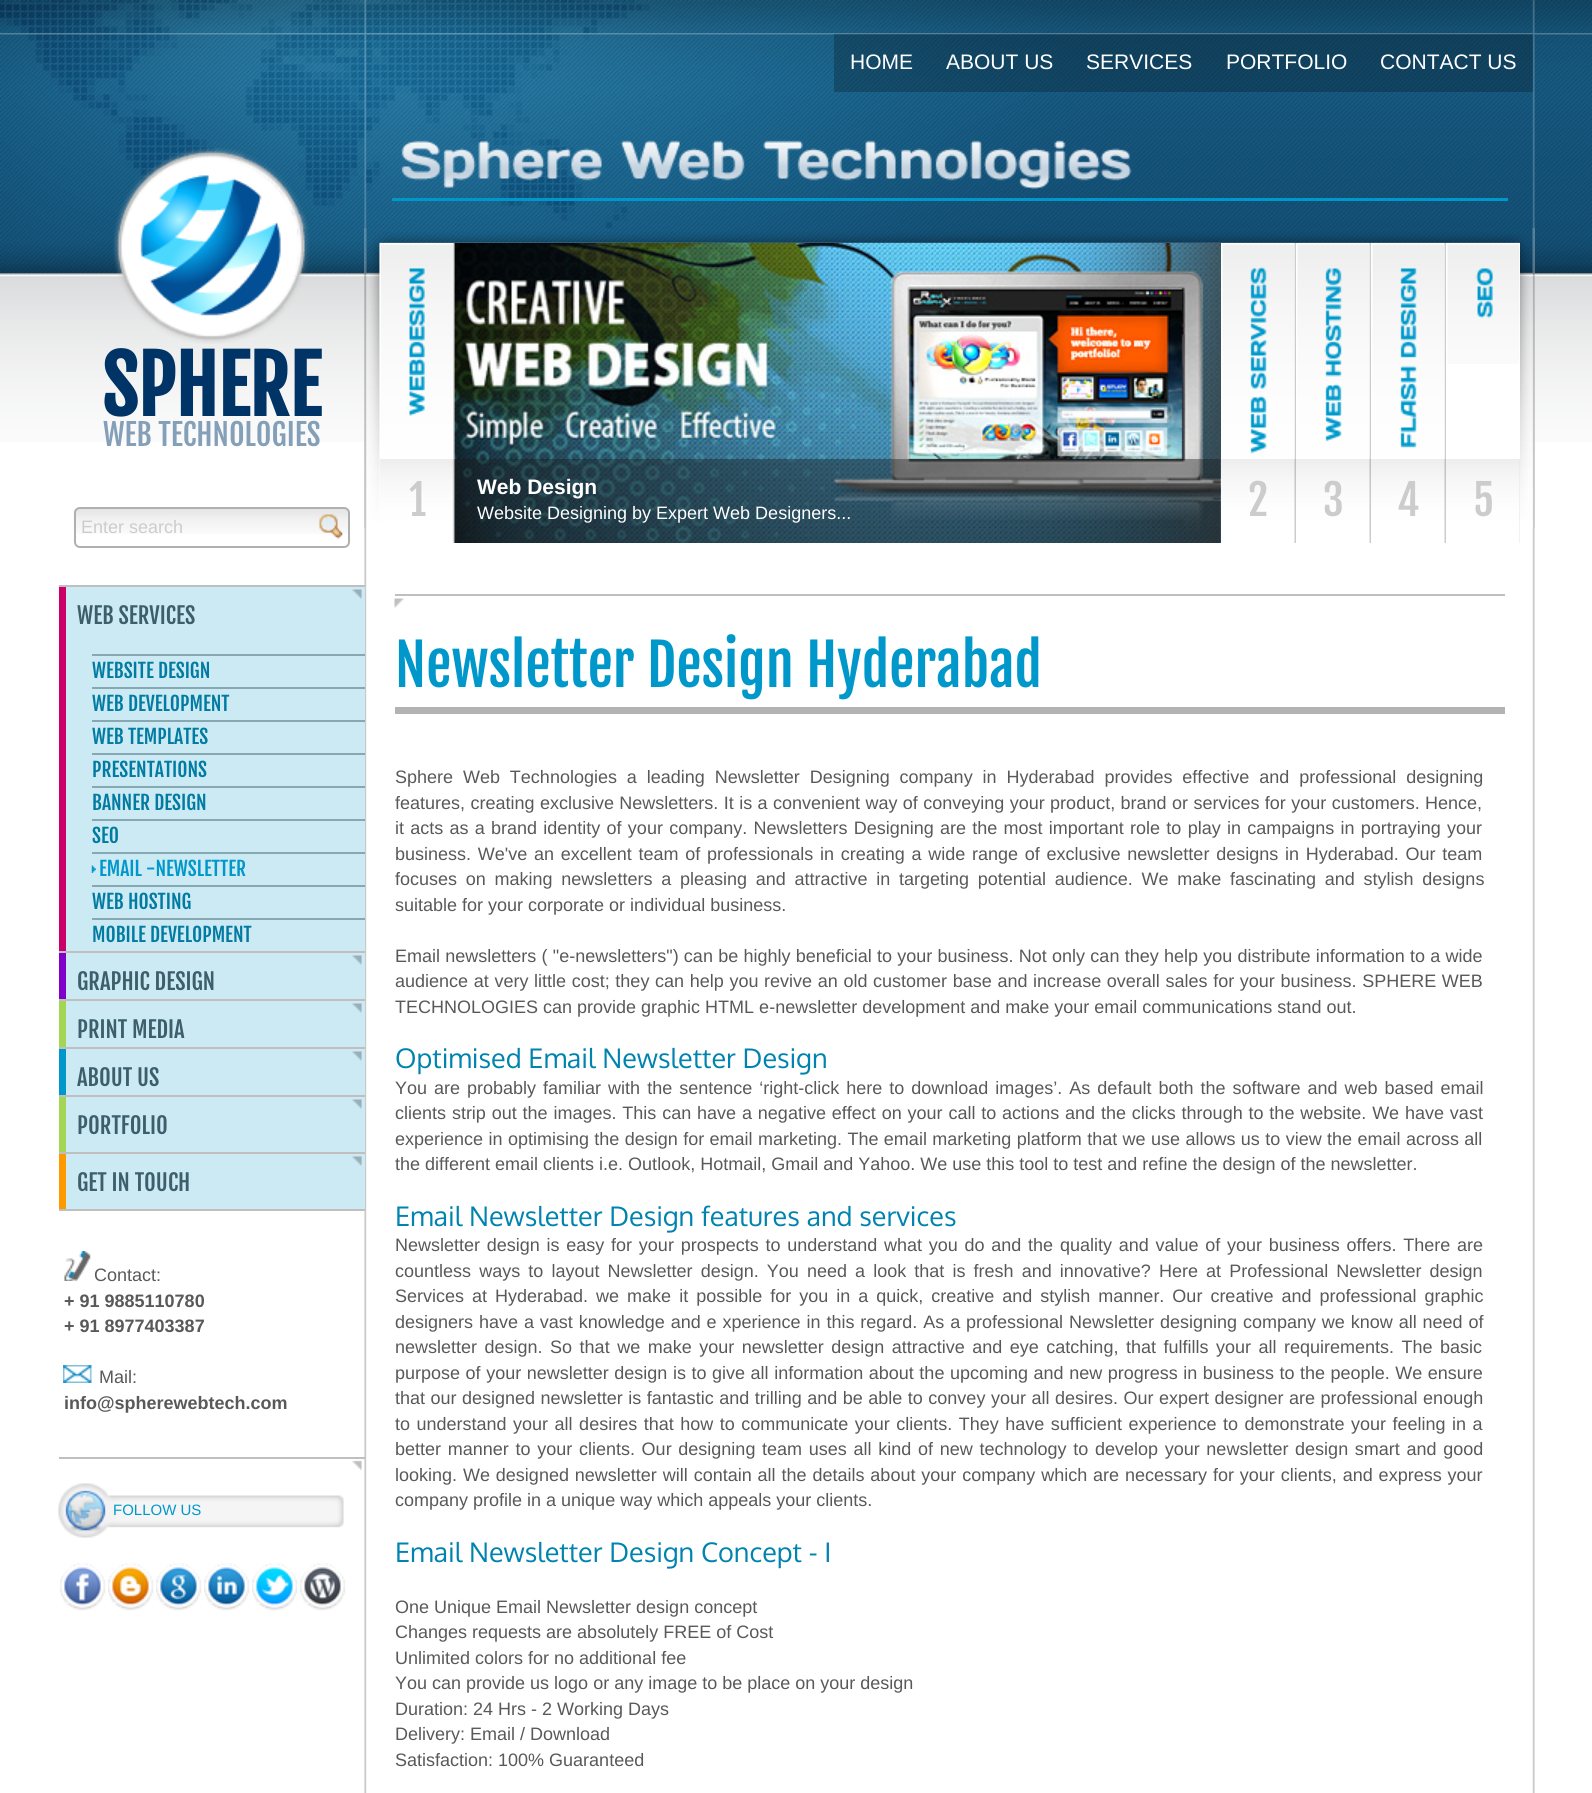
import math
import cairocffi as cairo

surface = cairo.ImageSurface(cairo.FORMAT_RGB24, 1592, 1793)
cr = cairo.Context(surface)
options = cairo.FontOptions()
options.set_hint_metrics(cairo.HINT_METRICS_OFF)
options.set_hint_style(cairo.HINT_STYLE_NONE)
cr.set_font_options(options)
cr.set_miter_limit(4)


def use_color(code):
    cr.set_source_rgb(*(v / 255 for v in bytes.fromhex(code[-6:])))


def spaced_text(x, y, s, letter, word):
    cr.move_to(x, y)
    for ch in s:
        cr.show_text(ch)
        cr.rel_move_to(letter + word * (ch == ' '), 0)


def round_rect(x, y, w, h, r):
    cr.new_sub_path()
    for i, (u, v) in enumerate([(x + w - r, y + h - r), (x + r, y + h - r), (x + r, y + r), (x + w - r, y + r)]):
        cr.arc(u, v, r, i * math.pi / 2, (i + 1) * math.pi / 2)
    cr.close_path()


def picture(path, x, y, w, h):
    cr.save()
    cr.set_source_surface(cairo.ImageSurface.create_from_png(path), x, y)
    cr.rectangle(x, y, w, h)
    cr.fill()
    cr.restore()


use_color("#ffffff")
cr.paint()
picture("img1.png", 0, 273, 1592, 169)
picture("img2.png", 0, 0, 1592, 273)
picture("img3.png", 0, 33, 1592, 2)
picture("img4.png", 364, 0, 1171, 33)
picture("img7.png", 364, 228, 1171, 1565)
picture("img23.png", 364, 228, 1171, 300)
picture("img24.png", 379, 243, 76, 300)
picture("img25.png", 381, 244, 72, 215)
picture("img26.png", 454, 243, 767, 300)
picture("img28.png", 1221, 243, 75, 300)
picture("img29.png", 1222, 244, 73, 215)
picture("img28.png", 1296, 243, 75, 300)
picture("img31.png", 1297, 244, 73, 215)
picture("img28.png", 1371, 243, 75, 300)
picture("img32.png", 1372, 244, 73, 215)
use_color("#ffffff")
cr.rectangle(1446, 243, 74, 268)
cr.fill()
picture("img33.png", 1447, 244, 73, 120)
picture("img5.png", 364, 34, 1171, 239)
cr.set_source_rgba(0.016, 0.031, 0.031, 0.24)
cr.rectangle(834, 34, 699, 58)
cr.fill()
cr.select_font_face("Liberation Sans")
cr.set_font_size(21)
use_color("#ffffff")
cr.move_to(850, 69)
cr.show_text("HOME")
cr.move_to(946, 69)
cr.show_text("ABOUT US")
cr.move_to(1086, 69)
cr.show_text("SERVICES")
cr.move_to(1226, 69)
cr.show_text("PORTFOLIO")
cr.move_to(1380, 69)
cr.show_text("CONTACT US")
picture("img6.png", 401, 140, 731, 49)
use_color("#0098ca")
cr.rectangle(392, 198, 1116, 3)
cr.fill()
picture("img8.png", 113, 147, 197, 197)
cr.select_font_face("Fjalla One", cairo.FONT_SLANT_NORMAL, cairo.FONT_WEIGHT_BOLD)
cr.set_font_size(78)
use_color("#003366")
cr.move_to(102, 416)
cr.show_text("SPHERE")
cr.select_font_face("Fjalla One")
cr.set_font_size(30)
use_color("#849fb8")
cr.move_to(103, 446)
cr.show_text("WEB TECHNOLOGIES")
picture("img9.png", 73, 508, 277, 26)
round_rect(75, 508, 274, 39, 5)
use_color("#b0b0b0")
cr.stroke()
cr.select_font_face("Liberation Sans")
cr.set_font_size(18)
use_color("#cccccc")
cr.move_to(81, 533)
cr.show_text("Enter search")
picture("img10.png", 319, 514, 24, 25)
use_color("#bfbfbf")
cr.rectangle(59, 951, 306, 203)
cr.fill()
cr.rectangle(59, 585, 306, 2)
cr.fill()
cr.rectangle(59, 1209, 306, 2)
cr.fill()
use_color("#cceaf4")
cr.rectangle(66, 587, 299, 364)
cr.fill()
picture("img11.png", 352, 589, 10, 10)
use_color("#ca0068")
cr.rectangle(59, 587, 7, 364)
cr.fill()
cr.select_font_face("Fjalla One")
cr.set_font_size(22.5)
use_color("#3c5f6b")
cr.move_to(77, 624)
cr.show_text("WEB SERVICES")
use_color("#85a8b3")
cr.rectangle(92, 654, 273, 2)
cr.fill()
cr.set_font_size(19.5)
use_color("#017ba2")
cr.move_to(92, 678)
cr.show_text("WEBSITE DESIGN")
use_color("#85a8b3")
cr.rectangle(92, 687, 273, 2)
cr.fill()
use_color("#017ba2")
cr.move_to(92, 711)
cr.show_text("WEB DEVELOPMENT")
use_color("#85a8b3")
cr.rectangle(92, 720, 273, 2)
cr.fill()
use_color("#017ba2")
cr.move_to(92, 744)
cr.show_text("WEB TEMPLATES")
use_color("#85a8b3")
cr.rectangle(92, 753, 273, 2)
cr.fill()
use_color("#017ba2")
cr.move_to(92, 777)
cr.show_text("PRESENTATIONS")
use_color("#85a8b3")
cr.rectangle(92, 786, 273, 2)
cr.fill()
use_color("#017ba2")
cr.move_to(92, 810)
cr.show_text("BANNER DESIGN")
use_color("#85a8b3")
cr.rectangle(92, 819, 273, 2)
cr.fill()
use_color("#017ba2")
cr.move_to(92, 843)
cr.show_text("SEO")
use_color("#85a8b3")
cr.rectangle(92, 852, 273, 2)
cr.fill()
picture("img12.png", 91, 865, 5, 8)
use_color("#0098ca")
cr.move_to(99, 876)
cr.show_text("EMAIL -NEWSLETTER")
use_color("#85a8b3")
cr.rectangle(92, 885, 273, 2)
cr.fill()
use_color("#017ba2")
cr.move_to(92, 909)
cr.show_text("WEB HOSTING")
use_color("#85a8b3")
cr.rectangle(92, 918, 273, 2)
cr.fill()
use_color("#017ba2")
cr.move_to(92, 942)
cr.show_text("MOBILE DEVELOPMENT")
use_color("#cceaf4")
cr.rectangle(66, 953, 299, 46)
cr.fill()
picture("img11.png", 352, 955, 10, 10)
use_color("#8000ca")
cr.rectangle(59, 953, 7, 46)
cr.fill()
cr.set_font_size(22.5)
use_color("#3c5f6b")
cr.move_to(77, 990)
cr.show_text("GRAPHIC DESIGN")
use_color("#cceaf4")
cr.rectangle(66, 1001, 299, 46)
cr.fill()
picture("img11.png", 352, 1003, 10, 10)
use_color("#a3d655")
cr.rectangle(59, 1001, 7, 46)
cr.fill()
use_color("#3c5f6b")
cr.move_to(77, 1038)
cr.show_text("PRINT MEDIA")
use_color("#cceaf4")
cr.rectangle(66, 1049, 299, 46)
cr.fill()
picture("img11.png", 352, 1051, 10, 10)
use_color("#0098ca")
cr.rectangle(59, 1049, 7, 46)
cr.fill()
use_color("#3c5f6b")
cr.move_to(77, 1086)
cr.show_text("ABOUT US")
use_color("#cceaf4")
cr.rectangle(66, 1097, 299, 55)
cr.fill()
picture("img11.png", 352, 1099, 10, 10)
use_color("#a3d655")
cr.rectangle(59, 1097, 7, 55)
cr.fill()
use_color("#3c5f6b")
cr.move_to(77, 1134)
cr.show_text("PORTFOLIO")
use_color("#cceaf4")
cr.rectangle(66, 1154, 299, 55)
cr.fill()
picture("img11.png", 352, 1156, 10, 10)
use_color("#ff9900")
cr.rectangle(59, 1154, 7, 55)
cr.fill()
use_color("#3c5f6b")
cr.move_to(77, 1191)
cr.show_text("GET IN TOUCH")
picture("img13.png", 64, 1251, 27, 30)
cr.select_font_face("Liberation Sans")
cr.set_font_size(18)
use_color("#595959")
cr.move_to(94, 1281)
cr.show_text("Contact:")
cr.select_font_face("Liberation Sans", cairo.FONT_SLANT_NORMAL, cairo.FONT_WEIGHT_BOLD)
cr.move_to(64, 1307)
cr.show_text("+ 91 9885110780")
cr.move_to(64, 1332)
cr.show_text("+ 91 8977403387")
picture("img14.png", 63, 1365, 29, 18)
cr.select_font_face("Liberation Sans")
cr.move_to(99, 1383)
cr.show_text("Mail:")
cr.select_font_face("Liberation Sans", cairo.FONT_SLANT_NORMAL, cairo.FONT_WEIGHT_BOLD)
cr.move_to(64, 1409)
cr.show_text("info@spherewebtech.com")
picture("img15.png", 352, 1460, 10, 10)
use_color("#bfbfbf")
cr.rectangle(59, 1457, 306, 2)
cr.fill()
picture("img16.png", 58, 1483, 286, 55)
cr.select_font_face("Liberation Sans")
cr.set_font_size(15)
use_color("#0098ca")
cr.move_to(113, 1515)
cr.show_text("FOLLOW US")
picture("img17.png", 60, 1563, 46, 48)
picture("img18.png", 108, 1563, 46, 48)
picture("img19.png", 156, 1563, 46, 48)
picture("img20.png", 204, 1563, 46, 48)
picture("img21.png", 252, 1563, 46, 48)
picture("img22.png", 300, 1563, 46, 48)
picture("img27.png", 380, 459, 75, 84)
cr.select_font_face("Fjalla One")
cr.set_font_size(42)
use_color("#cccccc")
cr.move_to(409, 516)
cr.show_text("1")
cr.set_source_rgba(0.098, 0.098, 0.098, 0.4)
cr.rectangle(454, 459, 766, 84)
cr.fill()
cr.select_font_face("Liberation Sans", cairo.FONT_SLANT_NORMAL, cairo.FONT_WEIGHT_BOLD)
cr.set_font_size(21)
use_color("#ffffff")
cr.move_to(477, 494)
cr.show_text("Web Design")
cr.select_font_face("Liberation Sans")
cr.set_font_size(18)
cr.move_to(477, 519)
cr.show_text("Website Designing by Expert Web Designers...")
picture("img30.png", 1221, 459, 75, 83)
cr.select_font_face("Fjalla One")
cr.set_font_size(42)
use_color("#cccccc")
cr.move_to(1248, 516)
cr.show_text("2")
picture("img30.png", 1296, 459, 75, 83)
cr.move_to(1323, 516)
cr.show_text("3")
picture("img30.png", 1371, 459, 75, 83)
cr.move_to(1397, 516)
cr.show_text("4")
picture("img34.png", 1446, 459, 74, 84)
cr.move_to(1473, 516)
cr.show_text("5")
picture("img35.png", 394, 598, 10, 10)
use_color("#bfbfbf")
cr.rectangle(395, 594, 1110, 2)
cr.fill()
use_color("#b3b3b3")
cr.rectangle(395, 707, 1110, 7)
cr.fill()
cr.set_font_size(57)
use_color("#0098ca")
cr.move_to(395, 687)
cr.show_text("Newsletter Design Hyderabad")
cr.select_font_face("Liberation Sans")
cr.set_font_size(18)
use_color("#595959")
spaced_text(395, 783, "Sphere Web Technologies a leading Newsletter Designing company in Hyderabad provides effective and professional designing", 0, 4.9)
spaced_text(395, 809, "features, creating exclusive Newsletters. It is a convenient way of conveying your product, brand or services for your customers. Hence,", 0, 0.4)
spaced_text(395, 834, "it acts as a brand identity of your company. Newsletters Designing are the most important role to play in campaigns in portraying your", 0, 1.25)
spaced_text(395, 860, "business. We've an excellent team of professionals in creating a wide range of exclusive newsletter designs in Hyderabad. Our team", 0, 1.75)
spaced_text(395, 885, "focuses on making newsletters a pleasing and attractive in targeting potential audience. We make fascinating and stylish designs", 0, 3.75)
cr.move_to(395, 911)
cr.show_text("suitable for your corporate or individual business.")
spaced_text(395, 962, "Email newsletters ( \"e-newsletters\") can be highly beneficial to your business. Not only can they help you distribute information to a wide", 0, 0.25)
spaced_text(395, 987, "audience at very little cost; they can help you revive an old customer base and increase overall sales for your business. SPHERE WEB", 0, 0.65)
cr.move_to(395, 1013)
cr.show_text("TECHNOLOGIES can provide graphic HTML e-newsletter development and make your email communications stand out.")
cr.select_font_face("Oxygen")
cr.set_font_size(27)
use_color("#0083ae")
cr.move_to(395, 1068)
cr.show_text("Optimised Email Newsletter Design")
cr.select_font_face("Liberation Sans")
cr.set_font_size(18)
use_color("#595959")
spaced_text(395, 1094, "You are probably familiar with the sentence ‘right-click here to download images’. As default both the software and web based email", 0, 2)
spaced_text(395, 1119, "clients strip out the images. This can have a negative effect on your call to actions and the clicks through to the website. We have vast", 0, 0.85)
spaced_text(395, 1145, "experience in optimising the design for email marketing. The email marketing platform that we use allows us to view the email across all", 0, 0.4)
cr.move_to(395, 1170)
cr.show_text("the different email clients i.e. Outlook, Hotmail, Gmail and Yahoo. We use this tool to test and refine the design of the newsletter.")
cr.select_font_face("Oxygen")
cr.set_font_size(27)
use_color("#0083ae")
cr.move_to(395, 1226)
cr.show_text("Email Newsletter Design features and services")
cr.select_font_face("Liberation Sans")
cr.set_font_size(18)
use_color("#595959")
spaced_text(395, 1251, "Newsletter design is easy for your prospects to understand what you do and the quality and value of your business offers. There are", 0, 1.75)
spaced_text(395, 1277, "countless ways to layout Newsletter design. You need a look that is fresh and innovative? Here at Professional Newsletter design", 0, 3.1)
spaced_text(395, 1302, "Services at Hyderabad. we make it possible for you in a quick, creative and stylish manner. Our creative and professional graphic", 0, 3)
spaced_text(395, 1328, "designers have a vast knowledge and e xperience in this regard. As a professional Newsletter designing company we know all need of", 0, 0.9)
spaced_text(395, 1353, "newsletter design. So that we make your newsletter design attractive and eye catching, that fulfills your all requirements. The basic", 0, 2.5)
spaced_text(395, 1379, "purpose of your newsletter design is to give all information about the upcoming and new progress in business to the people. We ensure", 0, 0.55)
spaced_text(395, 1404, "that our designed newsletter is fantastic and trilling and be able to convey your all desires. Our expert designer are professional enough", 0, 0.5)
spaced_text(395, 1430, "to understand your all desires that how to communicate your clients. They have sufficient experience to demonstrate your feeling in a", 0, 1.5)
spaced_text(395, 1455, "better manner to your clients. Our designing team uses all kind of new technology to develop your newsletter design smart and good", 0, 1.7)
spaced_text(395, 1481, "looking. We designed newsletter will contain all the details about your company which are necessary for your clients, and express your", 0, 0.9)
cr.move_to(395, 1506)
cr.show_text("company profile in a unique way which appeals your clients.")
cr.select_font_face("Oxygen")
cr.set_font_size(27)
use_color("#0083ae")
cr.move_to(395, 1562)
cr.show_text("Email Newsletter Design Concept - I")
cr.select_font_face("Liberation Sans")
cr.set_font_size(18)
use_color("#595959")
cr.move_to(395, 1613)
cr.show_text("One Unique Email Newsletter design concept")
cr.move_to(395, 1638)
cr.show_text("Changes requests are absolutely FREE of Cost")
cr.move_to(395, 1664)
cr.show_text("Unlimited colors for no additional fee")
cr.move_to(395, 1689)
cr.show_text("You can provide us logo or any image to be place on your design")
cr.move_to(395, 1715)
cr.show_text("Duration: 24 Hrs - 2 Working Days")
cr.move_to(395, 1740)
cr.show_text("Delivery: Email / Download")
cr.move_to(395, 1766)
cr.show_text("Satisfaction: 100% Guaranteed")
surface.write_to_png("result.png")
